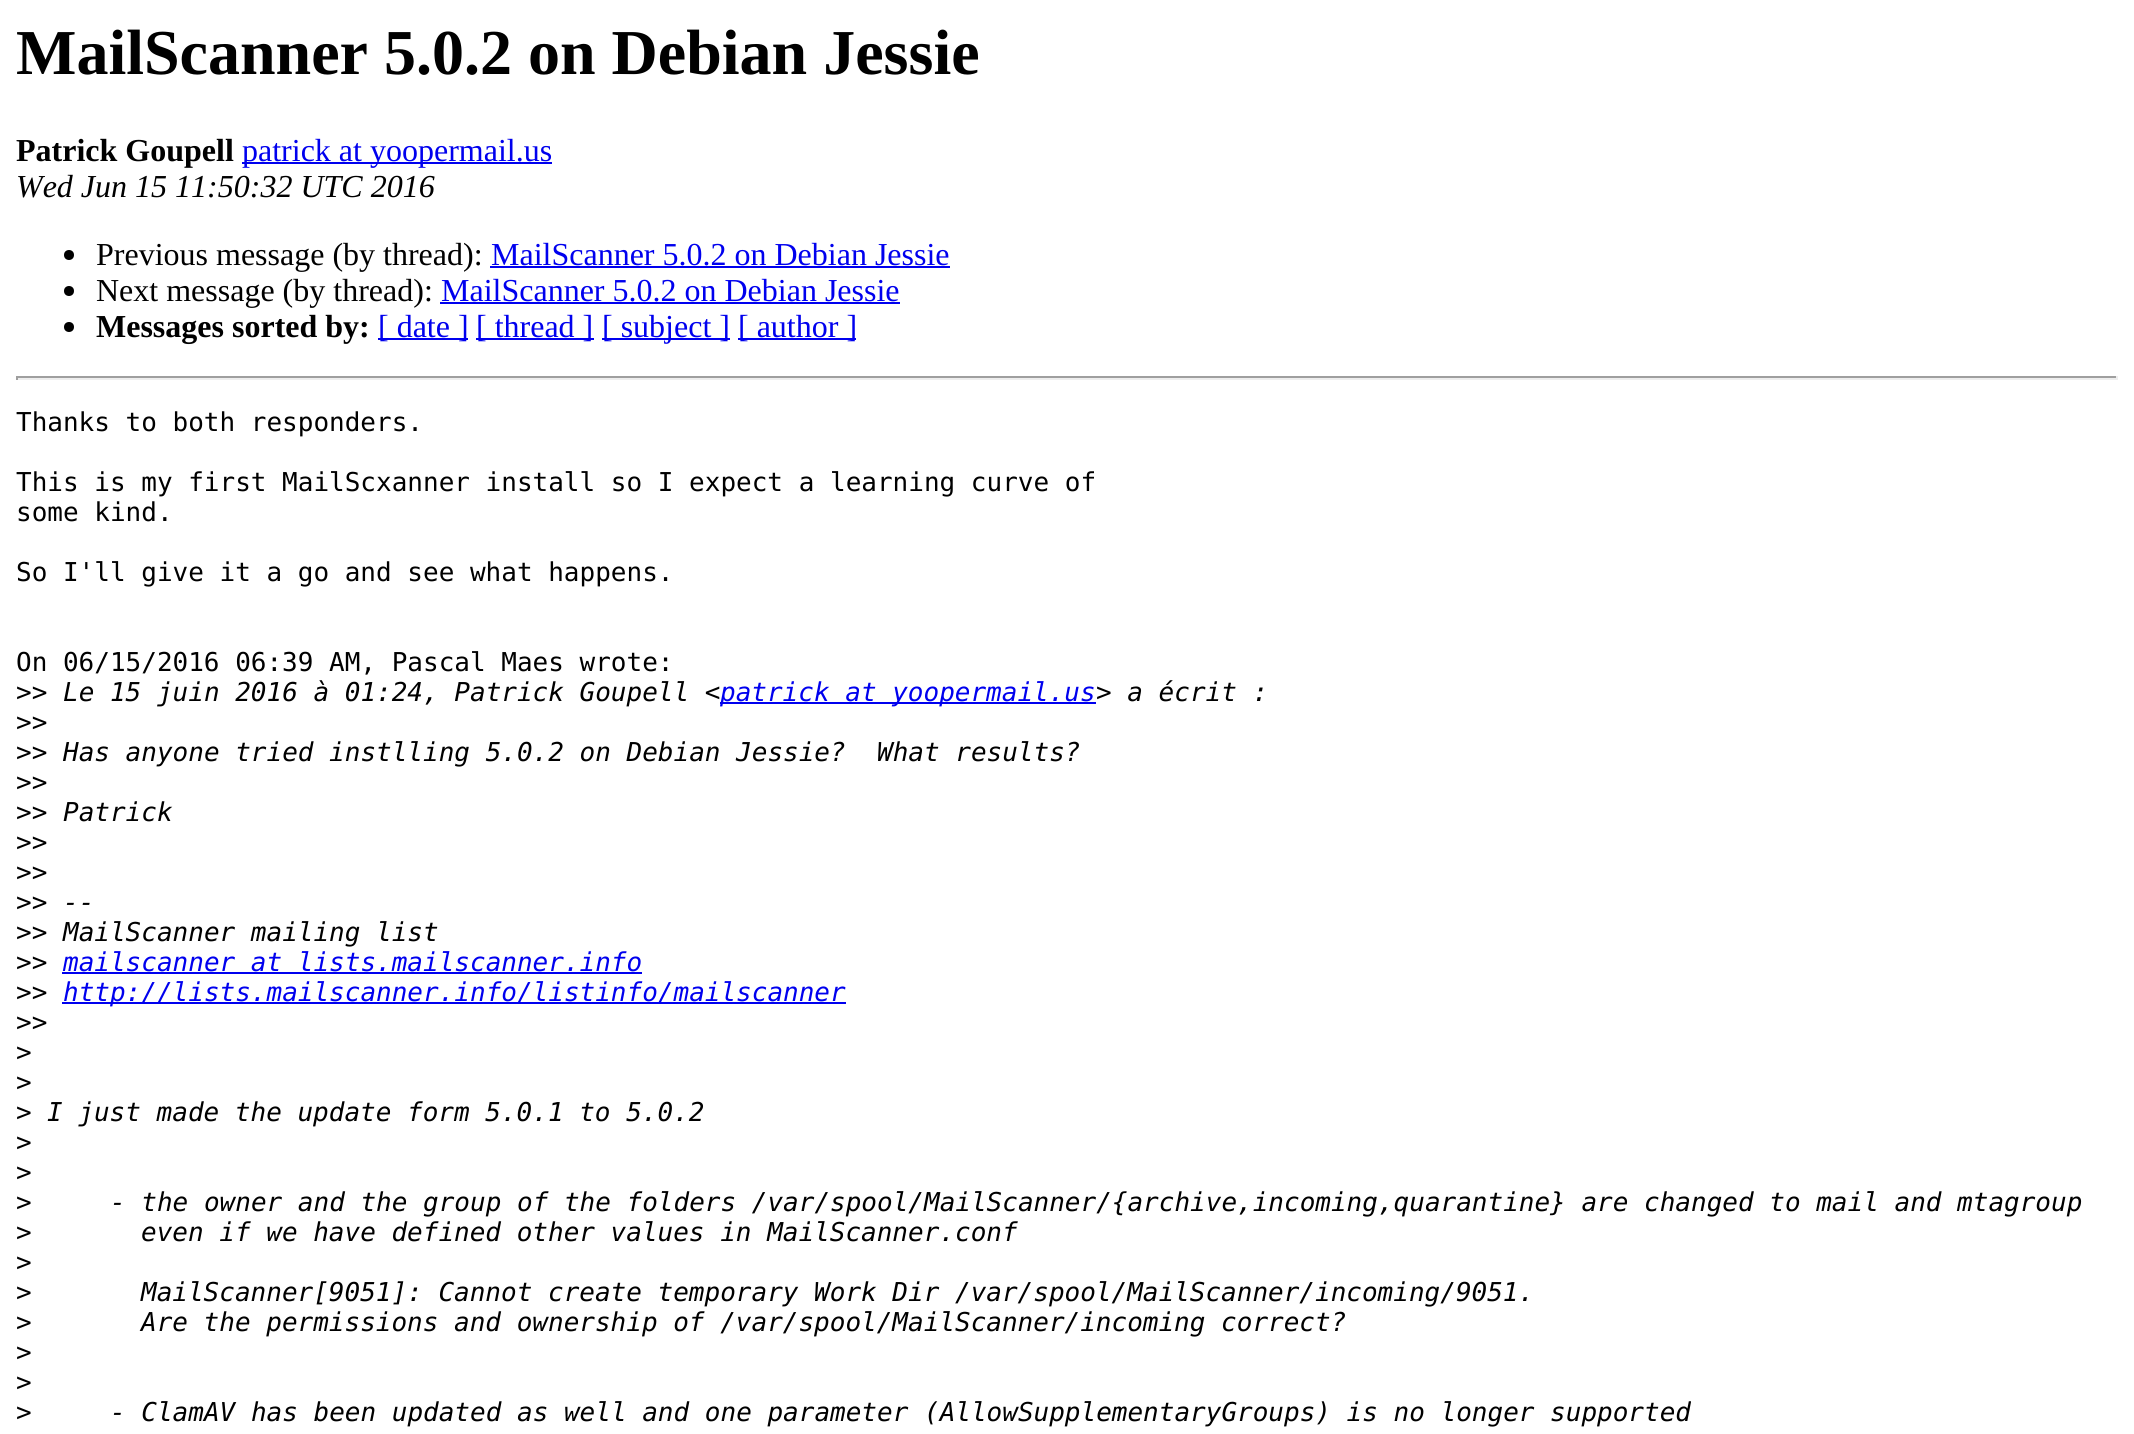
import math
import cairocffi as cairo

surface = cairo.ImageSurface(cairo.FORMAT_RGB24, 2134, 1434)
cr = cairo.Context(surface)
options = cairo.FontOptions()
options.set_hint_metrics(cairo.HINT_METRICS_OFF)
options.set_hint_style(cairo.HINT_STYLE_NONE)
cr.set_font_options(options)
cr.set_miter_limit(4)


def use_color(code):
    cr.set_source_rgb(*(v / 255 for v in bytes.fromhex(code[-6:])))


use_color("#ffffff")
cr.paint()
cr.select_font_face("Liberation Serif", cairo.FONT_SLANT_NORMAL, cairo.FONT_WEIGHT_BOLD)
cr.set_font_size(64)
use_color("#000000")
cr.move_to(16, 74)
cr.show_text("MailScanner 5.0.2 on Debian Jessie")
cr.set_font_size(32)
cr.move_to(16, 161)
cr.show_text("Patrick Goupell")
use_color("#0000ee")
cr.rectangle(242, 162, 310, 2)
cr.fill()
cr.select_font_face("Liberation Serif")
cr.move_to(242, 161)
cr.show_text("patrick at yoopermail.us")
cr.select_font_face("Liberation Serif", cairo.FONT_SLANT_ITALIC)
use_color("#000000")
cr.move_to(16, 197)
cr.show_text("Wed Jun 15 11:50:32 UTC 2016")
cr.new_path()
cr.arc(69, 255, 5, 0, 2 * math.pi)
cr.fill()
cr.select_font_face("Liberation Serif")
cr.move_to(96, 265)
cr.show_text("Previous message (by thread):")
use_color("#0000ee")
cr.move_to(491, 265)
cr.show_text("MailScanner 5.0.2 on Debian Jessie")
cr.rectangle(490, 266, 460, 2)
cr.fill()
use_color("#000000")
cr.arc(69, 291, 5, 0, 2 * math.pi)
cr.fill()
cr.move_to(96, 301)
cr.show_text("Next message (by thread):")
use_color("#0000ee")
cr.move_to(441, 301)
cr.show_text("MailScanner 5.0.2 on Debian Jessie")
cr.rectangle(440, 302, 460, 2)
cr.fill()
use_color("#000000")
cr.arc(69, 327, 5, 0, 2 * math.pi)
cr.fill()
cr.select_font_face("Liberation Serif", cairo.FONT_SLANT_NORMAL, cairo.FONT_WEIGHT_BOLD)
cr.move_to(96, 337)
cr.show_text("Messages sorted by:")
use_color("#0000ee")
cr.rectangle(378, 338, 90, 2)
cr.fill()
cr.select_font_face("Liberation Serif")
cr.move_to(378, 337)
cr.show_text("[ date ]")
cr.rectangle(476, 338, 118, 2)
cr.fill()
cr.move_to(476, 337)
cr.show_text("[ thread ]")
cr.rectangle(602, 338, 128, 2)
cr.fill()
cr.move_to(602, 337)
cr.show_text("[ subject ]")
cr.rectangle(738, 338, 118, 2)
cr.fill()
cr.move_to(738, 337)
cr.show_text("[ author ]")
use_color("#9f9f9f")
cr.rectangle(16, 376, 2102, 2)
cr.fill()
use_color("#eeeeee")
cr.rectangle(2116, 376, 2, 4)
cr.fill()
cr.rectangle(16, 378, 2102, 2)
cr.fill()
use_color("#9f9f9f")
cr.rectangle(16, 376, 2, 4)
cr.fill()
cr.select_font_face("DejaVu Sans Mono")
cr.set_font_size(26)
use_color("#000000")
cr.move_to(16, 431)
cr.show_text("Thanks to both responders.")
cr.move_to(16, 491)
cr.show_text("This is my first MailScxanner install so I expect a learning curve of")
cr.move_to(16, 521)
cr.show_text("some kind.")
cr.move_to(16, 581)
cr.show_text("So I'll give it a go and see what happens.")
cr.move_to(16, 671)
cr.show_text("On 06/15/2016 06:39 AM, Pascal Maes wrote:")
cr.move_to(16, 701)
cr.show_text(">>")
cr.select_font_face("DejaVu Sans Mono", cairo.FONT_SLANT_ITALIC)
cr.move_to(63, 701)
cr.show_text("Le 15 juin 2016 à 01:24, Patrick Goupell <")
use_color("#0000ee")
cr.rectangle(720, 702, 376, 2)
cr.fill()
cr.move_to(720, 701)
cr.show_text("patrick at yoopermail.us")
use_color("#000000")
cr.move_to(1096, 701)
cr.show_text("> a écrit :")
cr.select_font_face("DejaVu Sans Mono")
cr.move_to(16, 731)
cr.show_text(">>")
cr.move_to(16, 761)
cr.show_text(">>")
cr.select_font_face("DejaVu Sans Mono", cairo.FONT_SLANT_ITALIC)
cr.move_to(63, 761)
cr.show_text("Has anyone tried instlling 5.0.2 on Debian Jessie?  What results?")
cr.select_font_face("DejaVu Sans Mono")
cr.move_to(16, 791)
cr.show_text(">>")
cr.move_to(16, 821)
cr.show_text(">>")
cr.select_font_face("DejaVu Sans Mono", cairo.FONT_SLANT_ITALIC)
cr.move_to(63, 821)
cr.show_text("Patrick")
cr.select_font_face("DejaVu Sans Mono")
cr.move_to(16, 851)
cr.show_text(">>")
cr.move_to(16, 881)
cr.show_text(">>")
cr.move_to(16, 911)
cr.show_text(">>")
cr.select_font_face("DejaVu Sans Mono", cairo.FONT_SLANT_ITALIC)
cr.move_to(63, 911)
cr.show_text("--")
cr.select_font_face("DejaVu Sans Mono")
cr.move_to(16, 941)
cr.show_text(">>")
cr.select_font_face("DejaVu Sans Mono", cairo.FONT_SLANT_ITALIC)
cr.move_to(63, 941)
cr.show_text("MailScanner mailing list")
cr.select_font_face("DejaVu Sans Mono")
cr.move_to(16, 971)
cr.show_text(">>")
cr.select_font_face("DejaVu Sans Mono", cairo.FONT_SLANT_ITALIC)
use_color("#0000ee")
cr.move_to(63, 971)
cr.show_text("mailscanner at lists.mailscanner.info")
cr.rectangle(62, 972, 580, 2)
cr.fill()
cr.select_font_face("DejaVu Sans Mono")
use_color("#000000")
cr.move_to(16, 1001)
cr.show_text(">>")
use_color("#0000ee")
cr.rectangle(62, 1002, 784, 2)
cr.fill()
cr.select_font_face("DejaVu Sans Mono", cairo.FONT_SLANT_ITALIC)
cr.move_to(63, 1001)
cr.show_text("http://lists.mailscanner.info/listinfo/mailscanner")
cr.select_font_face("DejaVu Sans Mono")
use_color("#000000")
cr.move_to(16, 1031)
cr.show_text(">>")
cr.move_to(16, 1061)
cr.show_text(">")
cr.move_to(16, 1091)
cr.show_text(">")
cr.move_to(16, 1121)
cr.show_text(">")
cr.select_font_face("DejaVu Sans Mono", cairo.FONT_SLANT_ITALIC)
cr.move_to(47, 1121)
cr.show_text("I just made the update form 5.0.1 to 5.0.2")
cr.select_font_face("DejaVu Sans Mono")
cr.move_to(16, 1151)
cr.show_text(">")
cr.move_to(16, 1181)
cr.show_text(">")
cr.move_to(16, 1211)
cr.show_text(">")
cr.select_font_face("DejaVu Sans Mono", cairo.FONT_SLANT_ITALIC)
cr.move_to(110, 1211)
cr.show_text("- the owner and the group of the folders /var/spool/MailScanner/{archive,incoming,quarantine} are changed to mail and mtagroup")
cr.select_font_face("DejaVu Sans Mono")
cr.move_to(16, 1241)
cr.show_text(">")
cr.select_font_face("DejaVu Sans Mono", cairo.FONT_SLANT_ITALIC)
cr.move_to(141, 1241)
cr.show_text("even if we have defined other values in MailScanner.conf")
cr.select_font_face("DejaVu Sans Mono")
cr.move_to(16, 1271)
cr.show_text(">")
cr.move_to(16, 1301)
cr.show_text(">")
cr.select_font_face("DejaVu Sans Mono", cairo.FONT_SLANT_ITALIC)
cr.move_to(141, 1301)
cr.show_text("MailScanner[9051]: Cannot create temporary Work Dir /var/spool/MailScanner/incoming/9051.")
cr.select_font_face("DejaVu Sans Mono")
cr.move_to(16, 1331)
cr.show_text(">")
cr.select_font_face("DejaVu Sans Mono", cairo.FONT_SLANT_ITALIC)
cr.move_to(141, 1331)
cr.show_text("Are the permissions and ownership of /var/spool/MailScanner/incoming correct?")
cr.select_font_face("DejaVu Sans Mono")
cr.move_to(16, 1361)
cr.show_text(">")
cr.move_to(16, 1391)
cr.show_text(">")
cr.move_to(16, 1421)
cr.show_text(">")
cr.select_font_face("DejaVu Sans Mono", cairo.FONT_SLANT_ITALIC)
cr.move_to(110, 1421)
cr.show_text("- ClamAV has been updated as well and one parameter (AllowSupplementaryGroups) is no longer supported")
surface.write_to_png("result.png")
